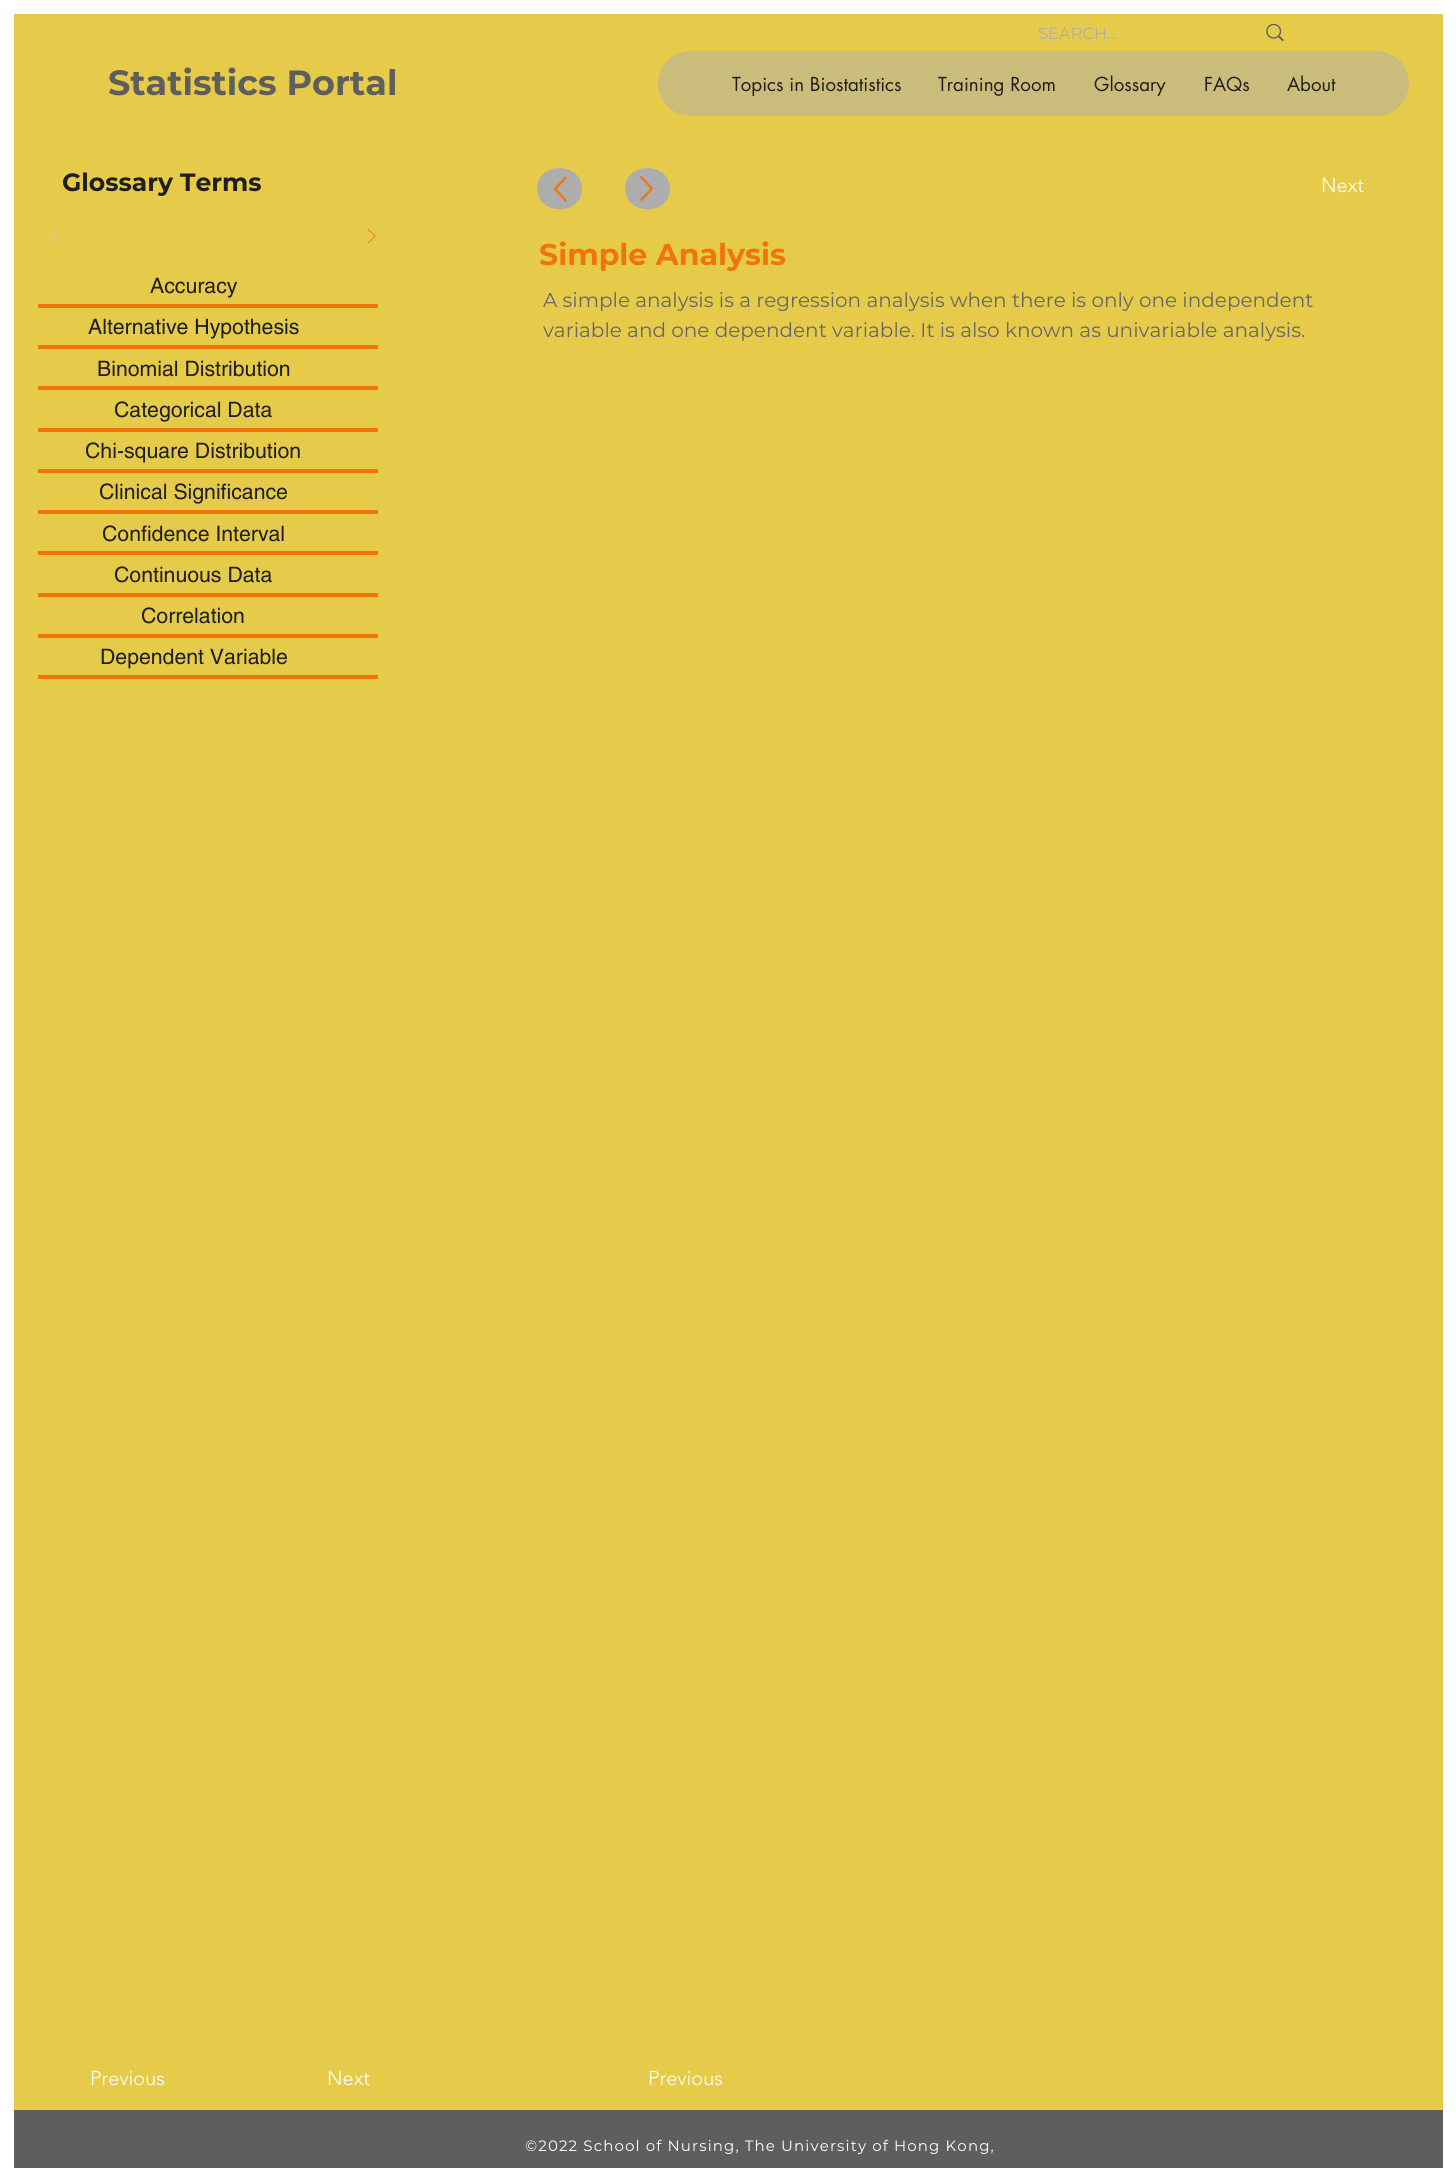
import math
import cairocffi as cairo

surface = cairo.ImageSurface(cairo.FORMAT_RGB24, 1456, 2181)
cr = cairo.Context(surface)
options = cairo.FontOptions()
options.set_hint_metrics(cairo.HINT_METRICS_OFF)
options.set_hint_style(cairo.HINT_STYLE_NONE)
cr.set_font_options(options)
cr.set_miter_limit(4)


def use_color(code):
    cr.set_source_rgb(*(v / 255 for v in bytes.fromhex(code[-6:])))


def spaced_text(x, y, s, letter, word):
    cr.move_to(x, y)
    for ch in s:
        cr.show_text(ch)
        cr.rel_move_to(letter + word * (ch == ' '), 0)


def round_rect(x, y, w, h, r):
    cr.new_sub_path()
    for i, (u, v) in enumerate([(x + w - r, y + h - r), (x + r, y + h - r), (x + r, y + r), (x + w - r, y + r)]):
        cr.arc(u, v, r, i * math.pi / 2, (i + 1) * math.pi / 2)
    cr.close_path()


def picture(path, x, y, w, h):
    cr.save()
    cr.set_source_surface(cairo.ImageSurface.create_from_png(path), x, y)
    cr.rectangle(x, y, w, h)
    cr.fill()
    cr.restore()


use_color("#e6cb4b")
cr.paint()
use_color("#ffffff")
cr.rectangle(0, 0, 14, 2181)
cr.fill()
cr.rectangle(14, 0, 1429, 14)
cr.fill()
cr.rectangle(1443, 0, 13, 2168)
cr.fill()
cr.select_font_face("Montserrat", cairo.FONT_SLANT_NORMAL, cairo.FONT_WEIGHT_BOLD)
cr.set_font_size(35)
use_color("#5e5e5c")
cr.move_to(108, 95)
cr.show_text("Statistics Portal")
cr.select_font_face("Montserrat")
cr.set_font_size(16.25)
use_color("#adadad")
cr.move_to(1038, 39)
cr.show_text("SEARCH...")
picture("img1.png", 1266, 24, 18, 17)
use_color("#cabc7b")
round_rect(658, 51, 751, 65, 32.5)
cr.fill()
cr.select_font_face("futura")
cr.set_font_size(18.75)
use_color("#1f1f1f")
cr.move_to(732, 91)
cr.show_text("Topics in Biostatistics")
cr.move_to(938, 91)
cr.show_text("Training Room")
cr.move_to(1094, 91)
cr.show_text("Glossary")
cr.move_to(1204, 91)
cr.show_text("FAQs")
cr.move_to(1287, 91)
cr.show_text("About")
cr.select_font_face("Montserrat", cairo.FONT_SLANT_NORMAL, cairo.FONT_WEIGHT_BOLD)
cr.set_font_size(25)
cr.move_to(62, 191)
cr.show_text("Glossary Terms")
picture("img2.png", 50, 229, 9, 15)
picture("img3.png", 367, 229, 9, 15)
cr.select_font_face("helvetica")
cr.set_font_size(21.25)
cr.move_to(150, 293)
cr.show_text("Accuracy")
use_color("#f07407")
cr.rectangle(38, 304, 340, 4)
cr.fill()
use_color("#1f1f1f")
cr.move_to(88, 334)
cr.show_text("Alternative Hypothesis")
use_color("#f07407")
cr.rectangle(38, 345, 340, 4)
cr.fill()
use_color("#1f1f1f")
cr.move_to(97, 376)
cr.show_text("Binomial Distribution")
use_color("#f07407")
cr.rectangle(38, 386, 340, 4)
cr.fill()
use_color("#1f1f1f")
cr.move_to(114, 417)
cr.show_text("Categorical Data")
use_color("#f07407")
cr.rectangle(38, 428, 340, 4)
cr.fill()
use_color("#1f1f1f")
cr.move_to(85, 458)
cr.show_text("Chi-square Distribution")
use_color("#f07407")
cr.rectangle(38, 469, 340, 4)
cr.fill()
use_color("#1f1f1f")
cr.move_to(99, 499)
cr.show_text("Clinical Significance")
use_color("#f07407")
cr.rectangle(38, 510, 340, 4)
cr.fill()
cr.save()
cr.rectangle(103, 524, 182, 22)
cr.clip()
use_color("#1f1f1f")
cr.move_to(102, 541)
cr.show_text("Confidence Interval")
cr.restore()
cr.rectangle(38, 551, 340, 4)
cr.fill()
use_color("#1f1f1f")
cr.move_to(114, 582)
cr.show_text("Continuous Data")
use_color("#f07407")
cr.rectangle(38, 593, 340, 4)
cr.fill()
use_color("#1f1f1f")
cr.move_to(141, 623)
cr.show_text("Correlation")
use_color("#f07407")
cr.rectangle(38, 634, 340, 4)
cr.fill()
use_color("#1f1f1f")
cr.move_to(100, 664)
cr.show_text("Dependent Variable")
use_color("#f07407")
cr.rectangle(38, 675, 340, 4)
cr.fill()
cr.select_font_face("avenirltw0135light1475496 Light")
cr.set_font_size(20)
use_color("#ffffff")
cr.move_to(90, 2085)
cr.show_text("Previous")
cr.move_to(327, 2085)
cr.show_text("Next")
use_color("#adadad")
cr.new_path()
cr.move_to(537, 189)
cr.curve_to(537, 161, 582, 161, 582, 189)
cr.curve_to(582, 216, 537, 216, 537, 189)
cr.close_path()
cr.fill()
picture("img4.png", 554, 176, 13, 26)
cr.new_path()
cr.move_to(670, 189)
cr.curve_to(670, 216, 625, 216, 625, 189)
cr.curve_to(625, 161, 670, 161, 670, 189)
cr.close_path()
cr.fill()
picture("img5.png", 640, 176, 13, 25)
use_color("#ffffff")
cr.move_to(1321, 192)
cr.show_text("Next")
cr.select_font_face("Montserrat", cairo.FONT_SLANT_NORMAL, cairo.FONT_WEIGHT_BOLD)
cr.set_font_size(30)
use_color("#f07407")
cr.move_to(539, 265)
cr.show_text("Simple Analysis")
cr.select_font_face("Montserrat")
cr.set_font_size(20)
use_color("#666666")
cr.move_to(543, 307)
cr.show_text("A simple analysis is a regression analysis when there is only one independent")
cr.move_to(543, 337)
cr.show_text("variable and one dependent variable. It is also known as univariable analysis.")
cr.select_font_face("avenirltw0135light1475496 Light")
use_color("#ffffff")
cr.move_to(648, 2085)
cr.show_text("Previous")
use_color("#5e5e5c")
cr.rectangle(14, 2110, 1429, 58)
cr.fill()
cr.select_font_face("Montserrat")
cr.set_font_size(15)
use_color("#ffffff")
spaced_text(525, 2151, "©2022 School of Nursing, The University of Hong Kong,", 1.12, 0)
cr.rectangle(14, 2168, 1442, 13)
cr.fill()
surface.write_to_png("result.png")
